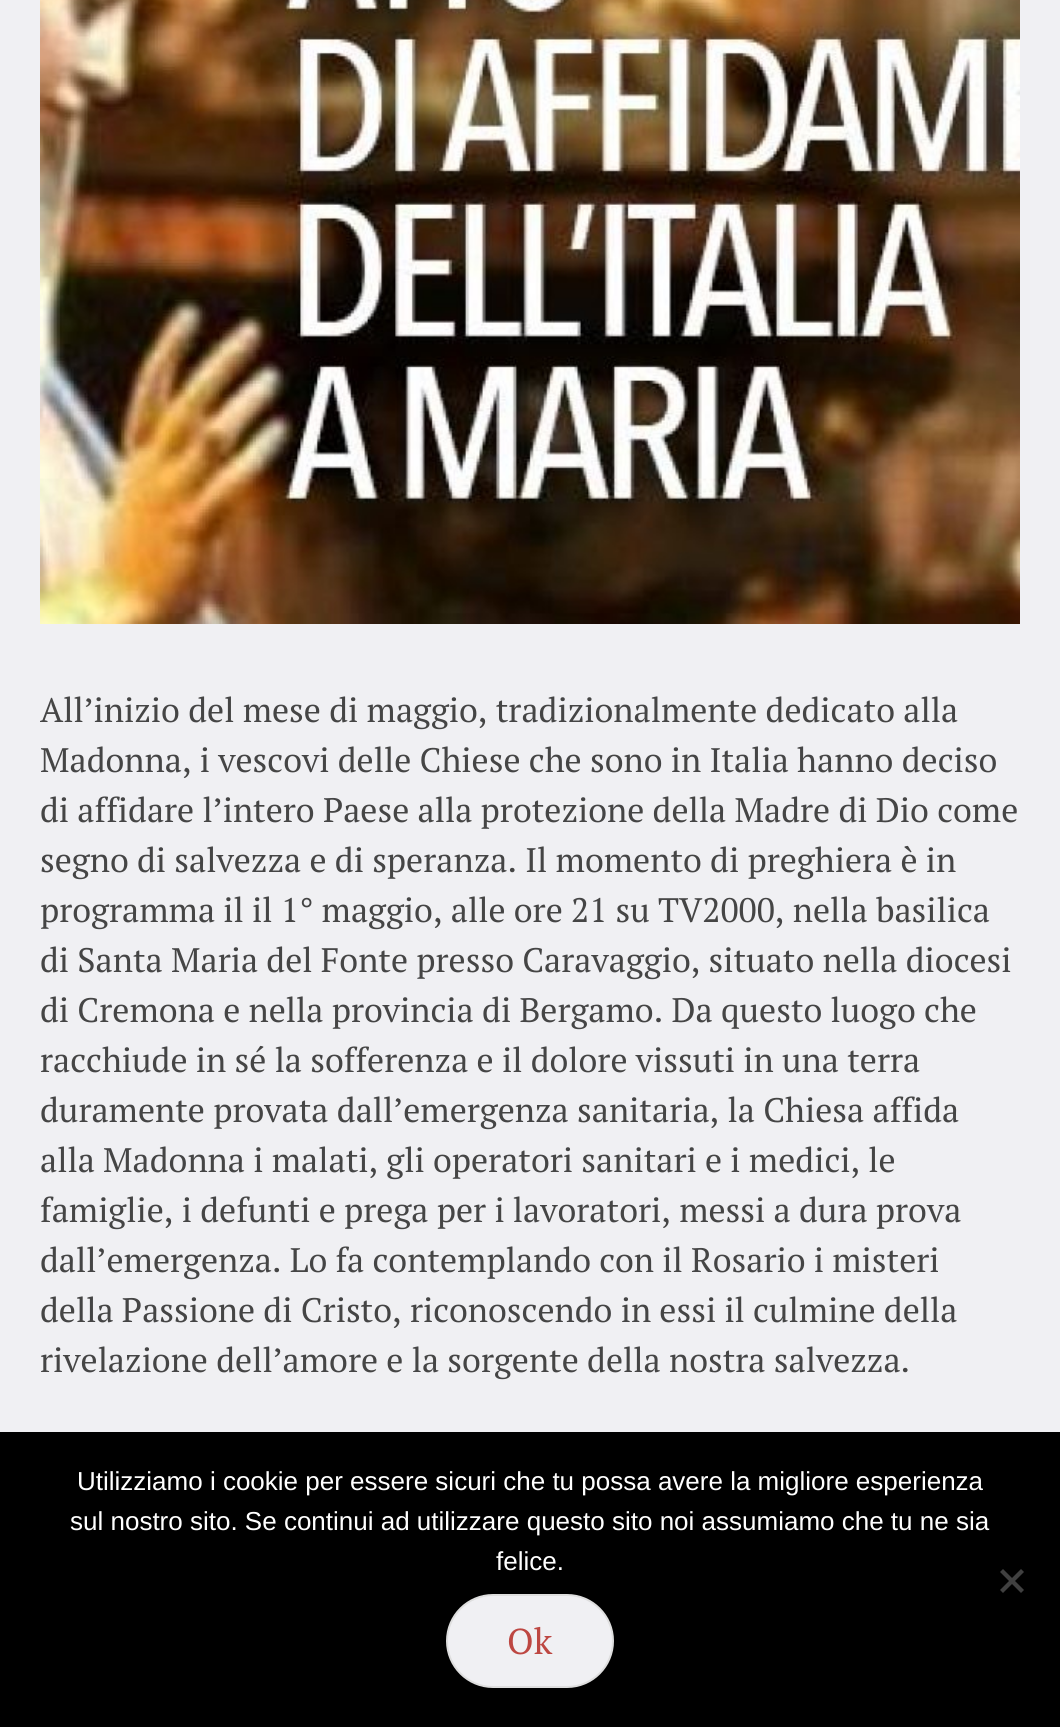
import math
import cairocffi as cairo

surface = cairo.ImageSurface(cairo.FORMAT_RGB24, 1060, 1727)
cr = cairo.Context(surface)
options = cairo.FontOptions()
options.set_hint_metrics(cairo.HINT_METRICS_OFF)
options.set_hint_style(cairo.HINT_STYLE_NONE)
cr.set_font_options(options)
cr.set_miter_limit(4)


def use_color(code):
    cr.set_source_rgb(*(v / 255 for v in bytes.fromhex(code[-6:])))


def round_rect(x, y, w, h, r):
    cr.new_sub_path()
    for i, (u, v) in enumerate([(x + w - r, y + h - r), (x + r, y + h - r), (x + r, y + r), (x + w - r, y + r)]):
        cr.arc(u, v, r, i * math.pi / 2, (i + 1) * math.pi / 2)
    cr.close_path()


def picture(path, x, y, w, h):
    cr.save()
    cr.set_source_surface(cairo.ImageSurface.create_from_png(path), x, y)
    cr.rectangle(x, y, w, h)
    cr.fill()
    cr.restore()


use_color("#f0f0f3")
cr.paint()
picture("img1.png", 40, 0, 980, 624)
cr.select_font_face("PT Serif")
cr.set_font_size(34)
use_color("#454545")
cr.move_to(40, 722)
cr.show_text("All’inizio del mese di maggio, tradizionalmente dedicato alla")
cr.move_to(40, 772)
cr.show_text("Madonna, i vescovi delle Chiese che sono in Italia hanno deciso")
cr.move_to(40, 822)
cr.show_text("di affidare l’intero Paese alla protezione della Madre di Dio come")
cr.move_to(40, 872)
cr.show_text("segno di salvezza e di speranza. Il momento di preghiera è in")
cr.move_to(40, 922)
cr.show_text("programma il il 1° maggio, alle ore 21 su TV2000, nella basilica")
cr.move_to(40, 972)
cr.show_text("di Santa Maria del Fonte presso Caravaggio, situato nella diocesi")
cr.move_to(40, 1022)
cr.show_text("di Cremona e nella provincia di Bergamo. Da questo luogo che")
cr.move_to(40, 1072)
cr.show_text("racchiude in sé la sofferenza e il dolore vissuti in una terra")
cr.move_to(40, 1122)
cr.show_text("duramente provata dall’emergenza sanitaria, la Chiesa affida")
cr.move_to(40, 1172)
cr.show_text("alla Madonna i malati, gli operatori sanitari e i medici, le")
cr.move_to(40, 1222)
cr.show_text("famiglie, i defunti e prega per i lavoratori, messi a dura prova")
cr.move_to(40, 1272)
cr.show_text("dall’emergenza. Lo fa contemplando con il Rosario i misteri")
cr.move_to(40, 1322)
cr.show_text("della Passione di Cristo, riconoscendo in essi il culmine della")
cr.move_to(40, 1372)
cr.show_text("rivelazione dell’amore e la sorgente della nostra salvezza.")
use_color("#000000")
cr.rectangle(0, 1432, 1060, 295)
cr.fill()
cr.select_font_face("Liberation Sans")
cr.set_font_size(26)
use_color("#ffffff")
cr.move_to(77, 1490)
cr.show_text("Utilizziamo i cookie per essere sicuri che tu possa avere la migliore esperienza")
cr.move_to(70, 1530)
cr.show_text("sul nostro sito. Se continui ad utilizzare questo sito noi assumiamo che tu ne sia")
cr.move_to(496, 1570)
cr.show_text("felice.")
use_color("#404040")
cr.new_path()
cr.move_to(1021, 1569)
cr.line_to(1024, 1572)
cr.line_to(1003, 1593)
cr.line_to(1000, 1590)
cr.close_path()
cr.fill()
cr.new_path()
cr.move_to(1000, 1572)
cr.line_to(1003, 1569)
cr.line_to(1024, 1590)
cr.line_to(1021, 1593)
cr.close_path()
cr.fill()
use_color("#f0f0f3")
round_rect(447, 1595, 166, 92, 46)
cr.fill_preserve()
use_color("#dedede")
cr.stroke()
cr.select_font_face("PT Serif")
cr.set_font_size(36)
use_color("#bd4742")
cr.move_to(507, 1654)
cr.show_text("Ok")
surface.write_to_png("result.png")
